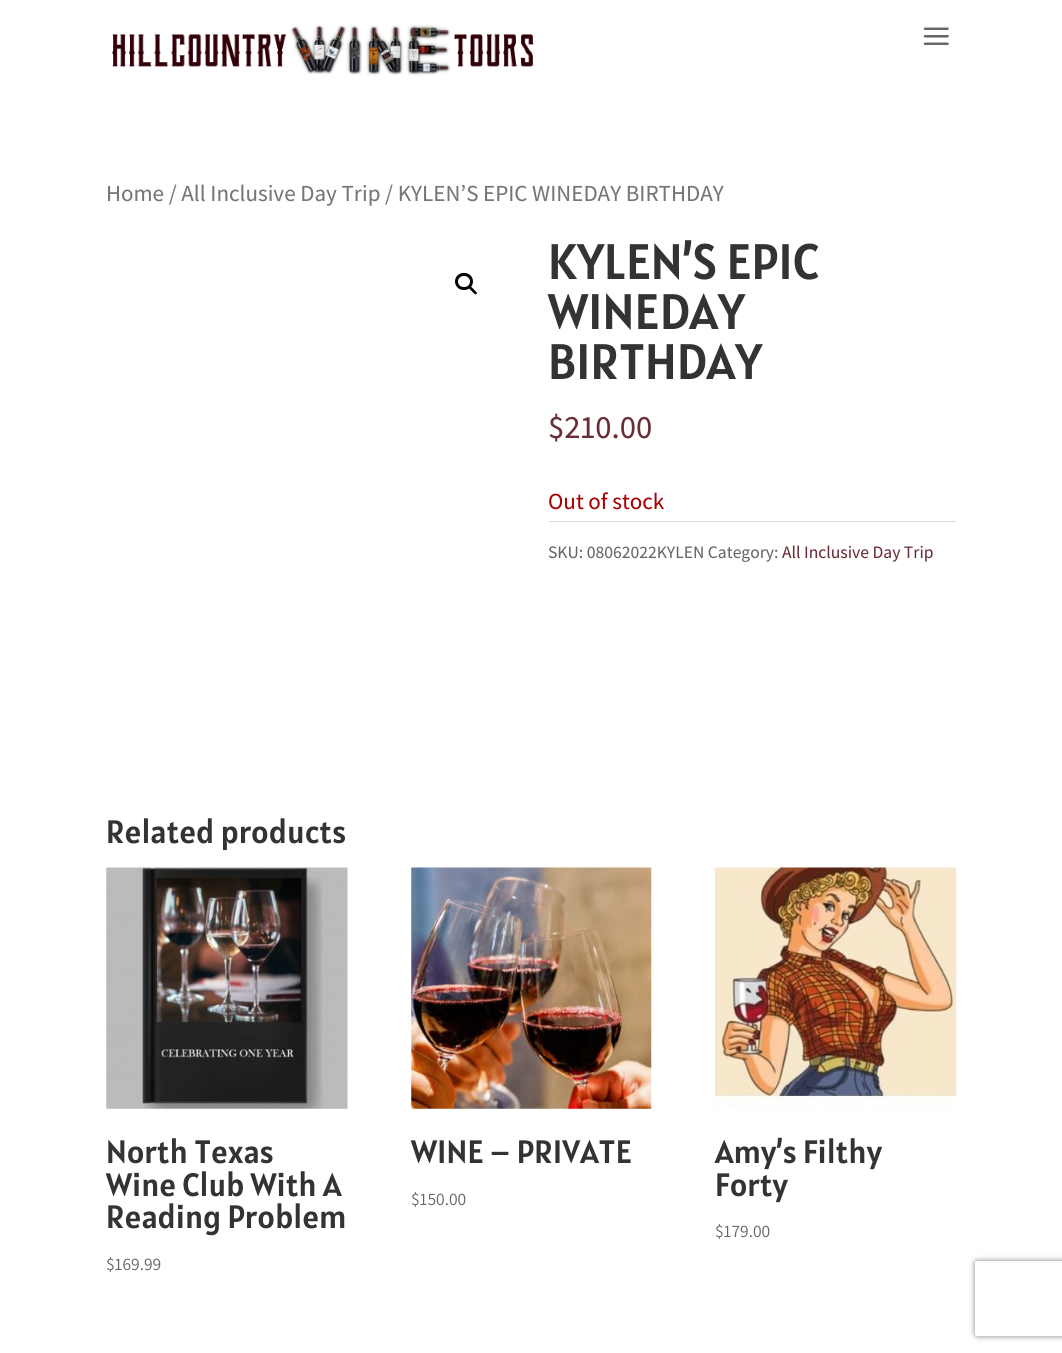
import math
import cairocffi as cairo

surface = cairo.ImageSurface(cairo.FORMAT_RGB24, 1062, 1353)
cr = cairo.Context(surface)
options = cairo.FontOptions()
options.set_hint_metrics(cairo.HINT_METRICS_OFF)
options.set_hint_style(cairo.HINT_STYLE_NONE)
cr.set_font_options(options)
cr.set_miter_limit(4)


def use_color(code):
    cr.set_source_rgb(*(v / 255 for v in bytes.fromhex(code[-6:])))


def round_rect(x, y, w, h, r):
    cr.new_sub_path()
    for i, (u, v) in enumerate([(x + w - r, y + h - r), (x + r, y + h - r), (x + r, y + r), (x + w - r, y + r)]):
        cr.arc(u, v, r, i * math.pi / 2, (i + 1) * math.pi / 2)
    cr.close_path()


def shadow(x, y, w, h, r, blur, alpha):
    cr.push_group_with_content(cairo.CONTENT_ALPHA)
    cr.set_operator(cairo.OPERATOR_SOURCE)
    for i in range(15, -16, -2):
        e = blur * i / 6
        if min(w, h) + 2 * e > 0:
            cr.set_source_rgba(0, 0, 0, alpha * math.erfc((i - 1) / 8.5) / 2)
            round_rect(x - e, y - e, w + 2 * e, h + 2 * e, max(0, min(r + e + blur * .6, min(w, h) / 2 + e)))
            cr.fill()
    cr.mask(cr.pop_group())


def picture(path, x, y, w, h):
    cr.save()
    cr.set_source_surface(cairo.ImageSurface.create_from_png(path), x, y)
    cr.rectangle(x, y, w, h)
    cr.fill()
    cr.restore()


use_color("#ffffff")
cr.paint()
picture("img1.png", 112, 25, 422, 50)
picture("img2.png", 923, 27, 26, 18)
cr.select_font_face("Assistant Medium")
cr.set_font_size(23)
use_color("#767676")
cr.move_to(106, 201)
cr.show_text("Home / All Inclusive Day Trip / KYLEN’S EPIC WINEDAY BIRTHDAY")
round_rect(456.5, 274.5, 15, 14, 7)
use_color("#000000")
cr.set_line_width(3)
cr.stroke()
cr.new_path()
cr.move_to(469.5, 287)
cr.curve_to(471, 285.5, 473, 289, 474, 289.5)
cr.curve_to(474.5, 290.5, 478, 292.5, 476.5, 294)
cr.curve_to(475, 295.5, 473, 292, 472, 291.5)
cr.curve_to(471.5, 290.5, 468, 288.5, 469.5, 287)
cr.close_path()
cr.fill()
cr.select_font_face("Alatsi")
cr.set_font_size(50)
use_color("#333333")
cr.move_to(548, 279)
cr.show_text("KYLEN’S EPIC")
cr.move_to(548, 329)
cr.show_text("WINEDAY")
cr.move_to(548, 379)
cr.show_text("BIRTHDAY")
cr.select_font_face("Assistant Medium")
cr.set_font_size(32.5)
use_color("#692e36")
cr.move_to(548, 438)
cr.show_text("$210.00")
cr.set_font_size(23)
use_color("#aa0000")
cr.move_to(548, 509)
cr.show_text("Out of stock")
use_color("#dadada")
cr.rectangle(549, 521, 407, 1)
cr.fill()
cr.set_font_size(17.5)
use_color("#666666")
cr.move_to(548, 558)
cr.show_text("SKU: 08062022KYLEN Category:")
use_color("#692e36")
cr.move_to(782, 558)
cr.show_text("All Inclusive Day Trip")
cr.select_font_face("Alatsi")
cr.set_font_size(32.5)
use_color("#333333")
cr.move_to(106, 843)
cr.show_text("Related products")
picture("img3.png", 106, 867, 242, 242)
cr.move_to(106, 1163)
cr.show_text("North Texas")
cr.move_to(106, 1196)
cr.show_text("Wine Club With A")
cr.move_to(106, 1228)
cr.show_text("Reading Problem")
cr.select_font_face("Assistant")
cr.set_font_size(17.5)
use_color("#666666")
cr.move_to(106, 1270)
cr.show_text("$169.99")
picture("img4.png", 411, 867, 241, 242)
cr.select_font_face("Alatsi")
cr.set_font_size(32.5)
use_color("#333333")
cr.move_to(411, 1163)
cr.show_text("WINE – PRIVATE")
cr.select_font_face("Assistant")
cr.set_font_size(17.5)
use_color("#666666")
cr.move_to(411, 1205)
cr.show_text("$150.00")
picture("img5.png", 715, 867, 242, 242)
cr.select_font_face("Alatsi")
cr.set_font_size(32.5)
use_color("#333333")
cr.move_to(715, 1163)
cr.show_text("Amy’s Filthy")
cr.move_to(715, 1196)
cr.show_text("Forty")
cr.select_font_face("Assistant")
cr.set_font_size(17.5)
use_color("#666666")
cr.move_to(715, 1237)
cr.show_text("$179.00")
cr.save()
cr.set_fill_rule(cairo.FILL_RULE_EVEN_ODD)
cr.new_path()
cr.move_to(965, 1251)
cr.line_to(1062, 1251)
cr.line_to(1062, 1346)
cr.line_to(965, 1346)
cr.close_path()
cr.move_to(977.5, 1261)
cr.line_to(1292.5, 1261)
cr.curve_to(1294, 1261, 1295, 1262, 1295, 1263.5)
cr.line_to(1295, 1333.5)
cr.curve_to(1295, 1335, 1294, 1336, 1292.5, 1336)
cr.line_to(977.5, 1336)
cr.curve_to(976, 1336, 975, 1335, 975, 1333.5)
cr.line_to(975, 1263.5)
cr.curve_to(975, 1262, 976, 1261, 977.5, 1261)
cr.close_path()
cr.clip()
use_color("#808080")
shadow(975, 1261, 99, 75, 2.5, 3, 1)
cr.restore()
surface.write_to_png("result.png")
